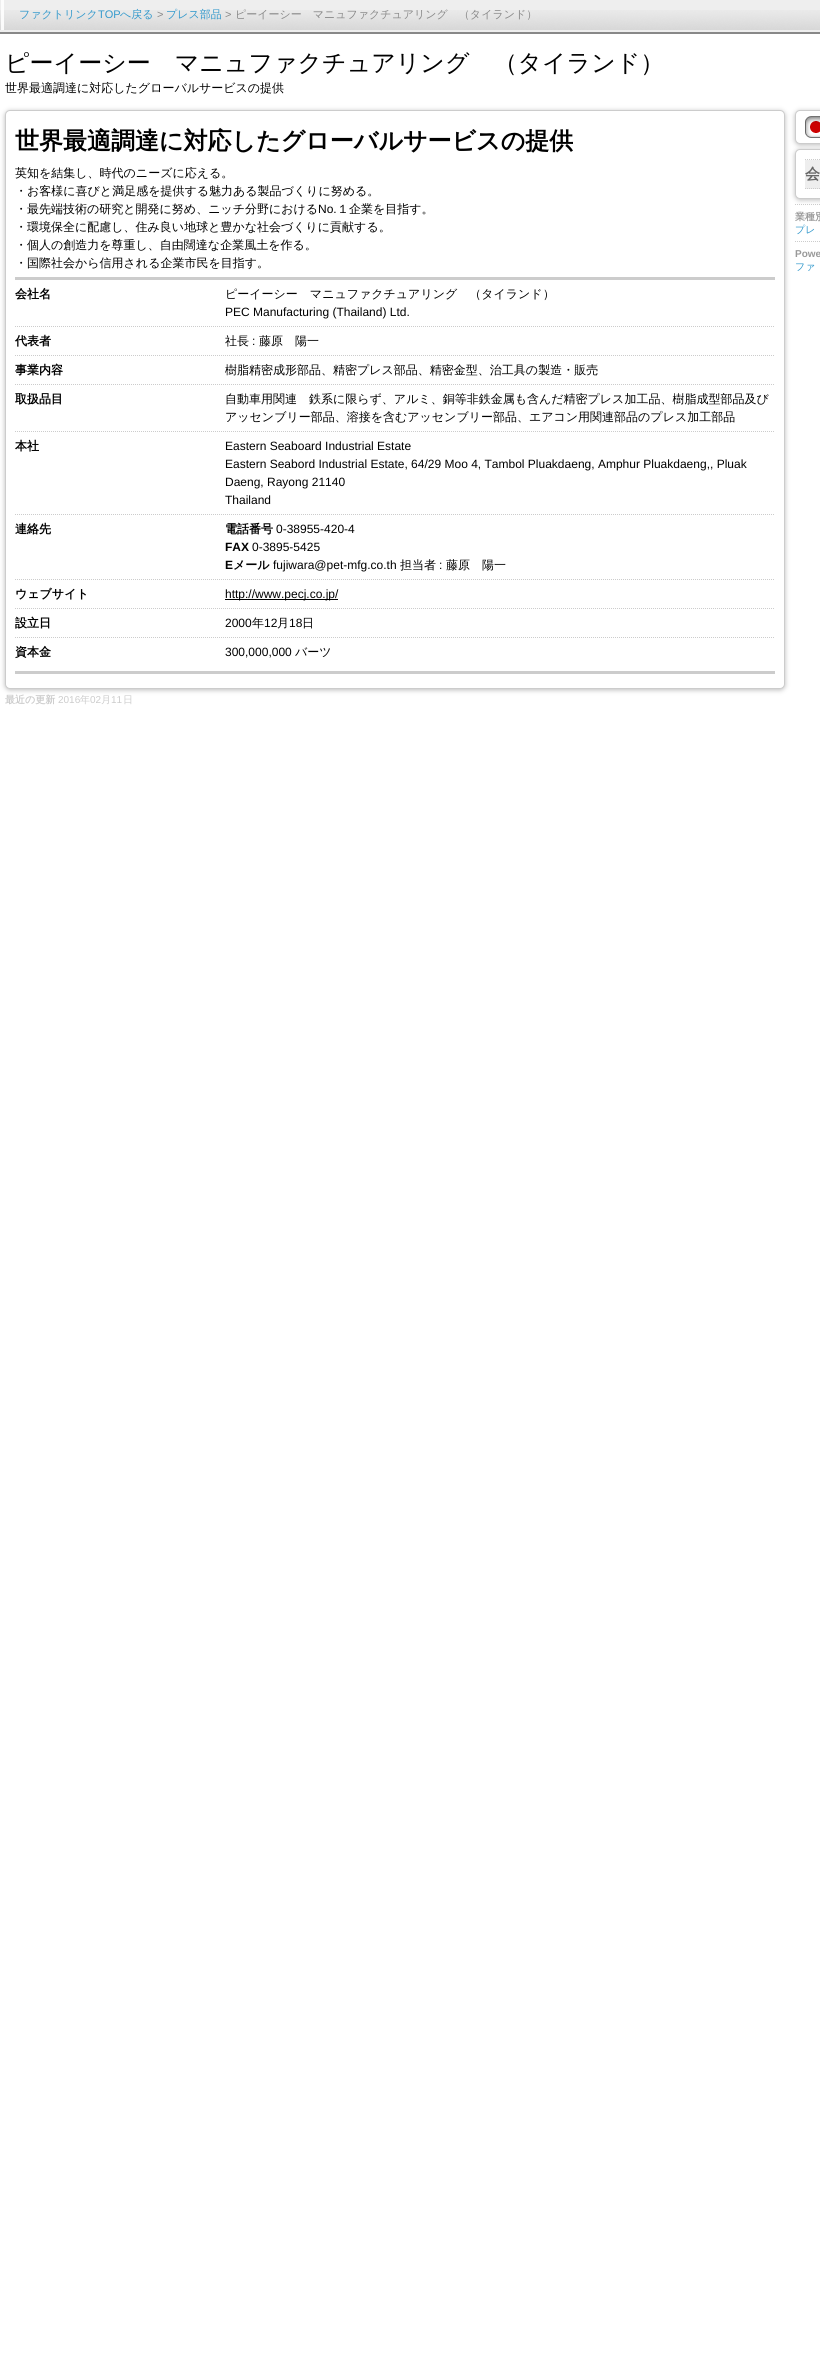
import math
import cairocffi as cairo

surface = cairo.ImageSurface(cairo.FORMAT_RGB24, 820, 2365)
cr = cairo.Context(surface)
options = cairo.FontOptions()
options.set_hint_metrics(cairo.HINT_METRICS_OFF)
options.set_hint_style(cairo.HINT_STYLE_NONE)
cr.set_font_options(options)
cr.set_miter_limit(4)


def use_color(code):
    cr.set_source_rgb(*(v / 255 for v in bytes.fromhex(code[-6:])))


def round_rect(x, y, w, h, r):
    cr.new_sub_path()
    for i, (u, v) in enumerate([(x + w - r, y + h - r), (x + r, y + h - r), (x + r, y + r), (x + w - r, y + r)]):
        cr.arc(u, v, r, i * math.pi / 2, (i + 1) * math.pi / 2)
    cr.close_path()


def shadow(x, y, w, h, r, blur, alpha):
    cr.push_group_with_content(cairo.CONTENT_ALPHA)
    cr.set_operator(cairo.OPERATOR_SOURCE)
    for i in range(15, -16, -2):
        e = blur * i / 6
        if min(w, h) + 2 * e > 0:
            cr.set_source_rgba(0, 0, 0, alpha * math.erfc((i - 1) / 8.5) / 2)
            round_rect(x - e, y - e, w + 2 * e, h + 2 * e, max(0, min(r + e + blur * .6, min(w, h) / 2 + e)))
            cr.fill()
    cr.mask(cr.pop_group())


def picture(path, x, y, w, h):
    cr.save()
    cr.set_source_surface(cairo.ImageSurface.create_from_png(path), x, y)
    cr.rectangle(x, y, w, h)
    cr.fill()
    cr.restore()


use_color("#ffffff")
cr.paint()
use_color("#eeeeee")
cr.rectangle(0, 0, 820, 32)
cr.fill()
picture("img1.png", 0, 10, 820, 20)
use_color("#888888")
cr.rectangle(0, 32, 820, 2)
cr.fill()
cr.set_source_rgba(0.996, 0.996, 0.996, 0.9)
cr.rectangle(1, 0, 3, 30)
cr.fill()
cr.select_font_face("WenQuanYi Zen Hei Medium")
cr.set_font_size(11)
use_color("#3399cc")
cr.move_to(19, 18)
cr.show_text("ファクトリンク")
cr.select_font_face("Liberation Sans")
cr.move_to(98, 18)
cr.show_text("TOP")
cr.select_font_face("WenQuanYi Zen Hei Medium")
cr.move_to(120, 18)
cr.show_text("へ戻る")
cr.select_font_face("Liberation Sans")
use_color("#888888")
cr.move_to(157, 18)
cr.show_text(">")
cr.select_font_face("WenQuanYi Zen Hei Medium")
use_color("#3399cc")
cr.move_to(166, 18)
cr.show_text("プレス部品")
cr.select_font_face("Liberation Sans")
use_color("#888888")
cr.move_to(225, 18)
cr.show_text(">")
cr.select_font_face("WenQuanYi Zen Hei Medium")
cr.move_to(235, 18)
cr.show_text("ピーイーシー　マニュファクチュアリング　（タイランド）")
cr.set_font_size(24)
use_color("#000000")
cr.move_to(5, 71)
cr.show_text("ピーイーシー　マニュファクチュアリング　（タイランド）")
cr.set_font_size(12)
cr.move_to(5, 92)
cr.show_text("世界最適調達に対応したグローバルサービスの提供")
use_color("#bbbbbb")
shadow(5, 111, 780, 579, 5, 2.5, 1)
use_color("#ffffff")
round_rect(5.5, 110.5, 779, 578, 4.5)
cr.fill_preserve()
use_color("#cccccc")
cr.set_line_width(1)
cr.stroke()
cr.select_font_face("WenQuanYi Zen Hei", cairo.FONT_SLANT_NORMAL, cairo.FONT_WEIGHT_BOLD)
cr.set_font_size(24)
use_color("#000000")
cr.move_to(15, 149)
cr.show_text("世界最適調達に対応したグローバルサービスの提供")
cr.select_font_face("WenQuanYi Zen Hei Medium")
cr.set_font_size(12)
cr.move_to(15, 177)
cr.show_text("英知を結集し、時代のニーズに応える。")
cr.move_to(15, 195)
cr.show_text("・お客様に喜びと満足感を提供する魅力ある製品づくりに努める。")
cr.move_to(15, 213)
cr.show_text("・最先端技術の研究と開発に努め、ニッチ分野における")
cr.select_font_face("Liberation Sans")
cr.move_to(318, 213)
cr.show_text("No.")
cr.select_font_face("WenQuanYi Zen Hei Medium")
cr.move_to(337, 213)
cr.show_text("１企業を目指す。")
cr.move_to(15, 231)
cr.show_text("・環境保全に配慮し、住み良い地球と豊かな社会づくりに貢献する。")
cr.move_to(15, 249)
cr.show_text("・個人の創造力を尊重し、自由闊達な企業風土を作る。")
cr.move_to(15, 267)
cr.show_text("・国際社会から信用される企業市民を目指す。")
use_color("#cccccc")
cr.rectangle(15, 277, 760, 3)
cr.fill()
cr.select_font_face("WenQuanYi Zen Hei", cairo.FONT_SLANT_NORMAL, cairo.FONT_WEIGHT_BOLD)
use_color("#000000")
cr.move_to(15, 298)
cr.show_text("会社名")
cr.select_font_face("WenQuanYi Zen Hei Medium")
cr.move_to(225, 298)
cr.show_text("ピーイーシー　マニュファクチュアリング　（タイランド）")
cr.select_font_face("Liberation Sans")
cr.move_to(225, 316)
cr.show_text("PEC Manufacturing (Thailand) Ltd.")
cr.new_path()
cr.move_to(15, 326.5)
cr.line_to(775, 326.5)
use_color("#cccccc")
cr.set_dash([1, 1])
cr.stroke()
cr.select_font_face("WenQuanYi Zen Hei", cairo.FONT_SLANT_NORMAL, cairo.FONT_WEIGHT_BOLD)
use_color("#000000")
cr.move_to(15, 345)
cr.show_text("代表者")
cr.select_font_face("WenQuanYi Zen Hei Medium")
cr.move_to(225, 345)
cr.show_text("社長")
cr.select_font_face("Liberation Sans")
cr.move_to(252, 345)
cr.show_text(":")
cr.select_font_face("WenQuanYi Zen Hei Medium")
cr.move_to(259, 345)
cr.show_text("藤原　陽一")
cr.new_path()
cr.move_to(15, 355.5)
cr.line_to(775, 355.5)
use_color("#cccccc")
cr.stroke()
cr.select_font_face("WenQuanYi Zen Hei", cairo.FONT_SLANT_NORMAL, cairo.FONT_WEIGHT_BOLD)
use_color("#000000")
cr.move_to(15, 374)
cr.show_text("事業内容")
cr.select_font_face("WenQuanYi Zen Hei Medium")
cr.move_to(225, 374)
cr.show_text("樹脂精密成形部品、精密プレス部品、精密金型、治工具の製造・販売")
cr.new_path()
cr.move_to(15, 384.5)
cr.line_to(775, 384.5)
use_color("#cccccc")
cr.stroke()
cr.select_font_face("WenQuanYi Zen Hei", cairo.FONT_SLANT_NORMAL, cairo.FONT_WEIGHT_BOLD)
use_color("#000000")
cr.move_to(15, 403)
cr.show_text("取扱品目")
cr.select_font_face("WenQuanYi Zen Hei Medium")
cr.move_to(225, 403)
cr.show_text("自動車用関連　鉄系に限らず、アルミ、銅等非鉄金属も含んだ精密プレス加工品、樹脂成型部品及び")
cr.move_to(225, 421)
cr.show_text("アッセンブリー部品、溶接を含むアッセンブリー部品、エアコン用関連部品のプレス加工部品")
cr.new_path()
cr.move_to(15, 431.5)
cr.line_to(775, 431.5)
use_color("#cccccc")
cr.stroke()
cr.select_font_face("WenQuanYi Zen Hei", cairo.FONT_SLANT_NORMAL, cairo.FONT_WEIGHT_BOLD)
use_color("#000000")
cr.move_to(15, 450)
cr.show_text("本社")
cr.select_font_face("Liberation Sans")
cr.move_to(225, 450)
cr.show_text("Eastern Seaboard Industrial Estate")
cr.move_to(225, 468)
cr.show_text("Eastern Seabord Industrial Estate, 64/29 Moo 4, Tambol Pluakdaeng, Amphur Pluakdaeng,, Pluak")
cr.move_to(225, 486)
cr.show_text("Daeng, Rayong 21140")
cr.move_to(225, 504)
cr.show_text("Thailand")
cr.new_path()
cr.move_to(15, 514.5)
cr.line_to(775, 514.5)
use_color("#cccccc")
cr.stroke()
cr.select_font_face("WenQuanYi Zen Hei", cairo.FONT_SLANT_NORMAL, cairo.FONT_WEIGHT_BOLD)
use_color("#000000")
cr.move_to(15, 533)
cr.show_text("連絡先")
cr.move_to(225, 533)
cr.show_text("電話番号")
cr.select_font_face("Liberation Sans")
cr.move_to(276, 533)
cr.show_text("0-38955-420-4")
cr.select_font_face("Liberation Sans", cairo.FONT_SLANT_NORMAL, cairo.FONT_WEIGHT_BOLD)
cr.move_to(225, 551)
cr.show_text("FAX")
cr.select_font_face("Liberation Sans")
cr.move_to(252, 551)
cr.show_text("0-3895-5425")
cr.select_font_face("Liberation Sans", cairo.FONT_SLANT_NORMAL, cairo.FONT_WEIGHT_BOLD)
cr.move_to(225, 569)
cr.show_text("E")
cr.select_font_face("WenQuanYi Zen Hei", cairo.FONT_SLANT_NORMAL, cairo.FONT_WEIGHT_BOLD)
cr.move_to(233, 569)
cr.show_text("メール")
cr.select_font_face("Liberation Sans")
cr.move_to(273, 569)
cr.show_text("fujiwara@pet-mfg.co.th")
cr.select_font_face("WenQuanYi Zen Hei Medium")
cr.move_to(400, 569)
cr.show_text("担当者")
cr.select_font_face("Liberation Sans")
cr.move_to(439, 569)
cr.show_text(":")
cr.select_font_face("WenQuanYi Zen Hei Medium")
cr.move_to(446, 569)
cr.show_text("藤原　陽一")
cr.new_path()
cr.move_to(15, 579.5)
cr.line_to(775, 579.5)
use_color("#cccccc")
cr.stroke()
cr.select_font_face("WenQuanYi Zen Hei", cairo.FONT_SLANT_NORMAL, cairo.FONT_WEIGHT_BOLD)
use_color("#000000")
cr.move_to(15, 598)
cr.show_text("ウェブサイト")
cr.rectangle(225, 599, 113, 1)
cr.fill()
cr.select_font_face("Liberation Sans")
cr.move_to(225, 598)
cr.show_text("http://www.pecj.co.jp/")
cr.new_path()
cr.move_to(15, 608.5)
cr.line_to(775, 608.5)
use_color("#cccccc")
cr.stroke()
cr.select_font_face("WenQuanYi Zen Hei", cairo.FONT_SLANT_NORMAL, cairo.FONT_WEIGHT_BOLD)
use_color("#000000")
cr.move_to(15, 627)
cr.show_text("設立日")
cr.select_font_face("Liberation Sans")
cr.move_to(225, 627)
cr.show_text("2000")
cr.select_font_face("WenQuanYi Zen Hei Medium")
cr.move_to(252, 627)
cr.show_text("年")
cr.select_font_face("Liberation Sans")
cr.move_to(264, 627)
cr.show_text("12")
cr.select_font_face("WenQuanYi Zen Hei Medium")
cr.move_to(277, 627)
cr.show_text("月")
cr.select_font_face("Liberation Sans")
cr.move_to(289, 627)
cr.show_text("18")
cr.select_font_face("WenQuanYi Zen Hei Medium")
cr.move_to(302, 627)
cr.show_text("日")
cr.new_path()
cr.move_to(15, 637.5)
cr.line_to(775, 637.5)
use_color("#cccccc")
cr.stroke()
cr.select_font_face("WenQuanYi Zen Hei", cairo.FONT_SLANT_NORMAL, cairo.FONT_WEIGHT_BOLD)
use_color("#000000")
cr.move_to(15, 656)
cr.show_text("資本金")
cr.select_font_face("Liberation Sans")
cr.move_to(225, 656)
cr.show_text("300,000,000")
cr.select_font_face("WenQuanYi Zen Hei Medium")
cr.move_to(295, 656)
cr.show_text("バーツ")
use_color("#cccccc")
cr.rectangle(15, 671, 760, 3)
cr.fill()
cr.select_font_face("WenQuanYi Zen Hei", cairo.FONT_SLANT_NORMAL, cairo.FONT_WEIGHT_BOLD)
cr.set_font_size(10)
cr.move_to(5, 703)
cr.show_text("最近の更新")
cr.select_font_face("Liberation Sans")
cr.move_to(58, 703)
cr.show_text("2016")
cr.select_font_face("WenQuanYi Zen Hei Medium")
cr.move_to(80, 703)
cr.show_text("年")
cr.select_font_face("Liberation Sans")
cr.move_to(90, 703)
cr.show_text("02")
cr.select_font_face("WenQuanYi Zen Hei Medium")
cr.move_to(101, 703)
cr.show_text("月")
cr.select_font_face("Liberation Sans")
cr.move_to(111, 703)
cr.show_text("11")
cr.select_font_face("WenQuanYi Zen Hei Medium")
cr.move_to(123, 703)
cr.show_text("日")
use_color("#bbbbbb")
shadow(795, 111, 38, 34, 5, 2.5, 1)
use_color("#ffffff")
round_rect(795.5, 110.5, 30, 33, 4.5)
cr.fill_preserve()
use_color("#cccccc")
cr.set_dash([])
cr.stroke()
picture("img2.png", 805, 116, 15, 22)
use_color("#bbbbbb")
shadow(795, 150, 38, 50, 5, 2.5, 1)
use_color("#ffffff")
round_rect(795.5, 149.5, 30, 49, 4.5)
cr.fill_preserve()
use_color("#cccccc")
cr.stroke()
cr.new_path()
cr.move_to(805, 159.5)
cr.line_to(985, 159.5)
cr.set_dash([1, 1])
cr.stroke()
use_color("#eeeeee")
cr.rectangle(805, 160, 15, 29)
cr.fill()
cr.new_path()
cr.move_to(805, 188.5)
cr.line_to(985, 188.5)
use_color("#cccccc")
cr.stroke()
cr.select_font_face("WenQuanYi Zen Hei", cairo.FONT_SLANT_NORMAL, cairo.FONT_WEIGHT_BOLD)
cr.set_font_size(15)
use_color("#666666")
cr.move_to(805, 179)
cr.show_text("会")
cr.new_path()
cr.move_to(795, 204.5)
cr.line_to(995, 204.5)
use_color("#cccccc")
cr.stroke()
cr.set_font_size(10)
use_color("#999999")
cr.move_to(795, 220)
cr.show_text("業種別")
cr.select_font_face("WenQuanYi Zen Hei Medium")
use_color("#3399cc")
cr.move_to(795, 233)
cr.show_text("プレ")
cr.new_path()
cr.move_to(795, 241.5)
cr.line_to(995, 241.5)
use_color("#cccccc")
cr.stroke()
cr.select_font_face("Liberation Sans", cairo.FONT_SLANT_NORMAL, cairo.FONT_WEIGHT_BOLD)
use_color("#999999")
cr.move_to(795, 257)
cr.show_text("Powe")
cr.select_font_face("WenQuanYi Zen Hei Medium")
use_color("#3399cc")
cr.move_to(795, 270)
cr.show_text("ファ")
surface.write_to_png("result.png")
